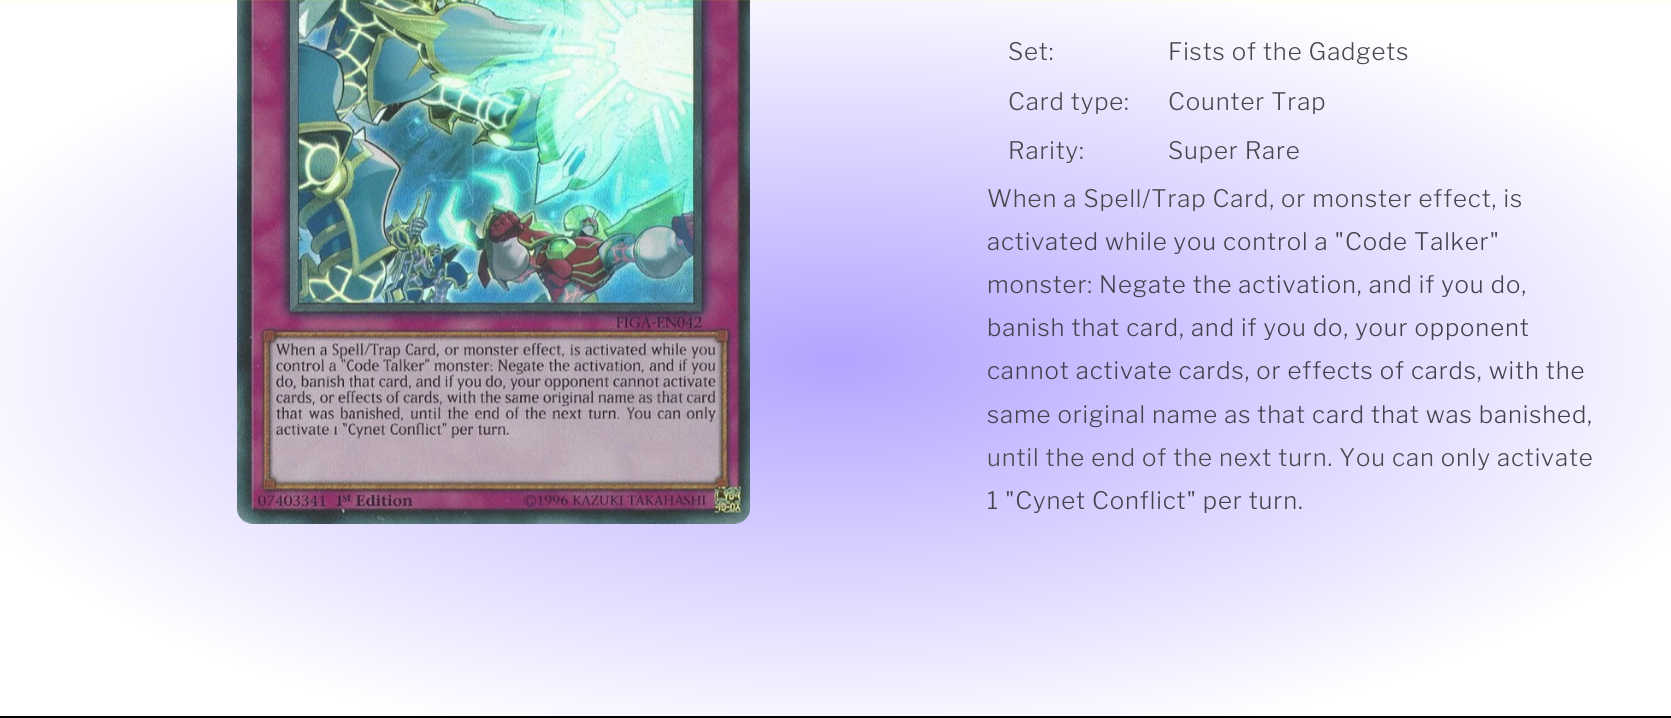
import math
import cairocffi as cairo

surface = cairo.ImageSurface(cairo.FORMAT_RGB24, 1671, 718)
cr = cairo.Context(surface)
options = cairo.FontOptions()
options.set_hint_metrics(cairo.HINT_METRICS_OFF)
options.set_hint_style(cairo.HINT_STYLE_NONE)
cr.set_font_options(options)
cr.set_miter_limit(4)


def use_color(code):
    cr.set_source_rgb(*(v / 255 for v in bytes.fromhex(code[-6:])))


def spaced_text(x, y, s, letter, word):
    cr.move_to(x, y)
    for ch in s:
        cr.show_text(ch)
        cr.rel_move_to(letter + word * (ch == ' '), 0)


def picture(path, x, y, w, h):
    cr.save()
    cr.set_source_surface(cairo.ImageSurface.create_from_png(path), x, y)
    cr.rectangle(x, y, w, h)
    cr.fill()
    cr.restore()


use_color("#ffffff")
cr.paint()
gradient = cairo.RadialGradient(0, 0, 0, 0, 0, 1)
gradient.set_matrix(cairo.Matrix(1 / 1182, 0, 0, 1 / 508, -1 * 836 / 1182, -1 * 359 / 508))
gradient.add_color_stop_rgba(0, 0.702, 0.643, 1, 1)
gradient.add_color_stop_rgba(0.79, 1, 1, 1, 1)
gradient.add_color_stop_rgba(0.97, 1, 1, 1, 1)
cr.set_source(gradient)
cr.rectangle(0, 0, 1671, 716)
cr.fill()
picture("img1.png", 237, 0, 513, 524)
cr.set_source_rgba(0.804, 0.957, 0.039, 0.08)
cr.rectangle(0, 0, 1671, 1)
cr.fill()
cr.select_font_face("Libre Franklin Light")
cr.set_font_size(24)
use_color("#49484d")
spaced_text(1008, 60, "Set:", 0.9, 0)
spaced_text(1168, 60, "Fists of the Gadgets", 0.9, 0)
spaced_text(1008, 110, "Card type:", 0.9, 0)
spaced_text(1168, 110, "Counter Trap", 0.9, 0)
spaced_text(1008, 159, "Rarity:", 0.9, 0)
spaced_text(1168, 159, "Super Rare", 0.9, 0)
spaced_text(987, 207, "When a Spell/Trap Card, or monster effect, is", 0.9, 0)
use_color("#44424d")
spaced_text(987, 250, "activated while you control a \"Code Talker\"", 0.9, 0)
spaced_text(987, 293, "monster: Negate the activation, and if you do,", 0.9, 0)
spaced_text(987, 336, "banish that card, and if you do, your opponent", 0.9, 0)
spaced_text(987, 379, "cannot activate cards, or effects of cards, with the", 0.9, 0)
spaced_text(987, 423, "same original name as that card that was banished,", 0.9, 0)
use_color("#49484d")
spaced_text(987, 466, "until the end of the next turn. You can only activate", 0.9, 0)
use_color("#44424d")
spaced_text(987, 509, "1 \"Cynet Conflict\" per turn.", 0.9, 0)
use_color("#000000")
cr.rectangle(0, 716, 1671, 2)
cr.fill()
surface.write_to_png("result.png")
